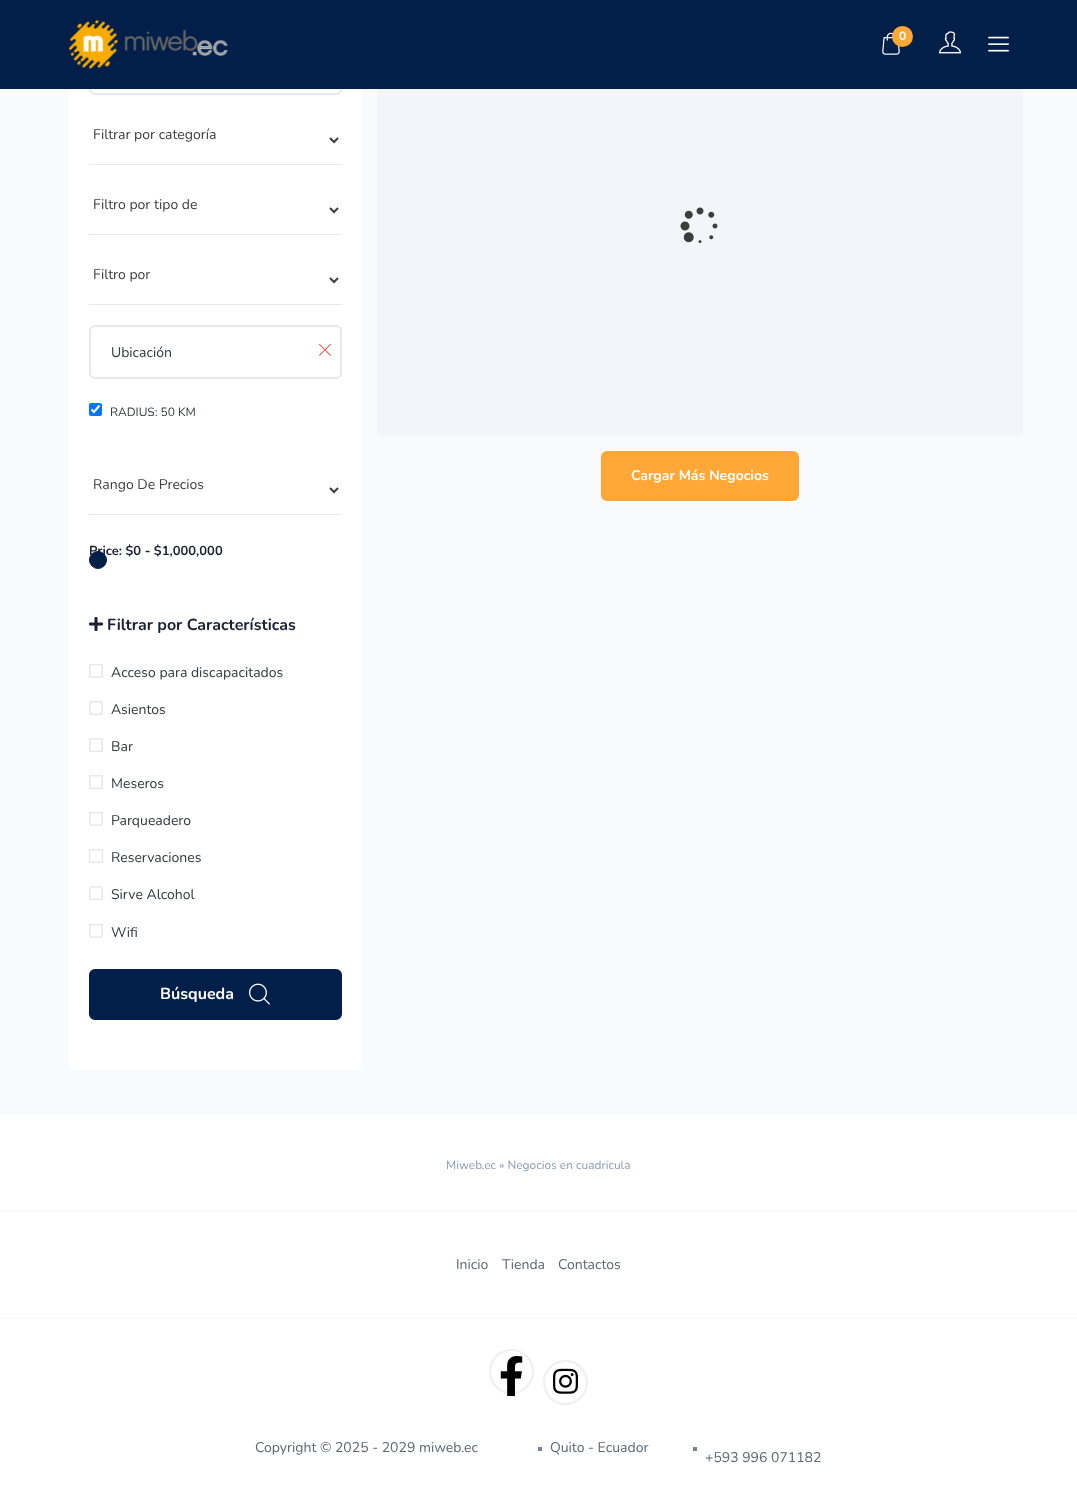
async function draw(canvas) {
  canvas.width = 1077
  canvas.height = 1511
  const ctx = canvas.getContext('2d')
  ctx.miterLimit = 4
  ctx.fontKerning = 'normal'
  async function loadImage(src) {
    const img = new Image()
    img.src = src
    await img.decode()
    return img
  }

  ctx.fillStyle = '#f9fafc'
  ctx.fillRect(0, 0, 1077, 1511)
  ctx.fillStyle = '#fff'
  ctx.beginPath()
  ctx.roundRect(69, 21, 293, 1049, 6)
  ctx.fill()
  ctx.beginPath()
  ctx.roundRect(90, 42, 251, 52, 5)
  ctx.strokeStyle = '#e6e8ed'
  ctx.lineWidth = 2
  ctx.stroke()
  ctx.fillStyle = '#021f4a'
  ctx.fillRect(0, 0, 1077, 89)
  ctx.drawImage(await loadImage('image0.png'), 68, 20, 160, 49)
  ctx.drawImage(await loadImage('image1.png'), 882, 32, 18, 23)
  ctx.fillStyle = '#ffa737'
  ctx.beginPath()
  ctx.arc(902.5, 36.5, 10.5, 0, 2 * Math.PI)
  ctx.fill()
  ctx.font = 'bold 12px Nunito'
  ctx.fillStyle = '#fff'
  ctx.fillText('0', 899, 40)
  ctx.drawImage(await loadImage('image2.png'), 939, 31, 22, 23)
  ctx.drawImage(await loadImage('image3.png'), 988, 36, 21, 16)
  ctx.fillStyle = '#e6e8ed'
  ctx.fillRect(89, 164, 253, 1)
  ctx.beginPath()
  ctx.moveTo(330, 138)
  ctx.lineTo(334, 142)
  ctx.lineTo(338, 138)
  ctx.strokeStyle = '#3e3e3e'
  ctx.stroke()
  ctx.font = '14px Nunito'
  ctx.fillStyle = '#3e3e3e'
  ctx.fillText('Filtrar por categoría', 93, 139)
  ctx.fillStyle = '#e6e8ed'
  ctx.fillRect(89, 234, 253, 1)
  ctx.beginPath()
  ctx.moveTo(330, 208)
  ctx.lineTo(334, 212)
  ctx.lineTo(338, 208)
  ctx.stroke()
  ctx.fillStyle = '#3e3e3e'
  ctx.fillText('Filtro por tipo de', 93, 209)
  ctx.fillStyle = '#e6e8ed'
  ctx.fillRect(89, 304, 253, 1)
  ctx.beginPath()
  ctx.moveTo(330, 278)
  ctx.lineTo(334, 282)
  ctx.lineTo(338, 278)
  ctx.stroke()
  ctx.fillStyle = '#3e3e3e'
  ctx.fillText('Filtro por', 93, 279)
  ctx.beginPath()
  ctx.roundRect(90, 326, 251, 52, 5)
  ctx.strokeStyle = '#e6e8ed'
  ctx.stroke()
  ctx.fillStyle = '#33393d'
  ctx.fillText('Ubicación', 111, 357)
  ctx.drawImage(await loadImage('image4.png'), 319, 343, 12, 13)
  ctx.fillStyle = '#0075ff'
  ctx.beginPath()
  ctx.roundRect(89, 403, 13, 13, 2)
  ctx.fill()
  ctx.beginPath()
  ctx.moveTo(91.5, 409.5)
  ctx.lineTo(94, 412)
  ctx.lineTo(99.5, 405.5)
  ctx.strokeStyle = '#fff'
  ctx.lineWidth = 2.1
  ctx.stroke()
  ctx.font = '12px Nunito'
  ctx.fillStyle = '#33393d'
  ctx.fillText('RADIUS: 50 KM', 110, 416)
  ctx.font = 'bold 13px Nunito'
  ctx.fillStyle = '#1b2032'
  ctx.fillText('Price: $0 - $1,000,000', 89, 555)
  ctx.fillStyle = '#021f4a'
  ctx.beginPath()
  ctx.arc(98, 560, 8.5, 0, 2 * Math.PI)
  ctx.fill()
  ctx.strokeStyle = '#021f4a'
  ctx.lineWidth = 1
  ctx.stroke()
  ctx.fillStyle = '#e6e8ed'
  ctx.fillRect(89, 514, 253, 1)
  ctx.beginPath()
  ctx.moveTo(330, 488)
  ctx.lineTo(334, 492)
  ctx.lineTo(338, 488)
  ctx.strokeStyle = '#3e3e3e'
  ctx.lineWidth = 2
  ctx.stroke()
  ctx.font = '14px Nunito'
  ctx.fillStyle = '#3e3e3e'
  ctx.fillText('Rango De Precios', 93, 489)
  ctx.drawImage(await loadImage('image5.png'), 89, 617, 14, 14)
  ctx.font = 'bold 16px Nunito'
  ctx.fillStyle = '#1b2032'
  ctx.fillText('Filtrar por Características', 107, 630)
  ctx.drawImage(await loadImage('image6.png'), 89, 664, 14, 14)
  ctx.font = '14px Nunito'
  ctx.fillStyle = '#33393d'
  ctx.fillText('Acceso para discapacitados', 111, 677)
  ctx.drawImage(await loadImage('image6.png'), 89, 701, 14, 14)
  ctx.fillText('Asientos', 111, 714)
  ctx.drawImage(await loadImage('image6.png'), 89, 738, 14, 14)
  ctx.fillText('Bar', 111, 751)
  ctx.drawImage(await loadImage('image6.png'), 89, 775, 14, 14)
  ctx.fillText('Meseros', 111, 788)
  ctx.drawImage(await loadImage('image6.png'), 89, 812, 14, 14)
  ctx.fillText('Parqueadero', 111, 825)
  ctx.drawImage(await loadImage('image6.png'), 89, 849, 14, 14)
  ctx.fillText('Reservaciones', 111, 862)
  ctx.drawImage(await loadImage('image6.png'), 89, 886, 14, 14)
  ctx.fillText('Sirve Alcohol', 111, 899)
  ctx.drawImage(await loadImage('image6.png'), 89, 924, 14, 14)
  ctx.fillText('Wifi', 111, 937)
  ctx.fillStyle = '#021f4a'
  ctx.beginPath()
  ctx.roundRect(90, 970, 251, 49, 5)
  ctx.fill()
  ctx.strokeStyle = '#021f4a'
  ctx.stroke()
  ctx.font = 'bold 16px Nunito'
  ctx.fillStyle = '#fff'
  ctx.fillText('Búsqueda', 160, 999)
  ctx.drawImage(await loadImage('image7.png'), 249, 983, 21, 22)
  ctx.fillStyle = '#f4f5fb'
  ctx.fillRect(377, 89, 646, 347)
  ctx.drawImage(await loadImage('image8.png'), 680, 207, 38, 37)
  ctx.fillStyle = '#ffa737'
  ctx.beginPath()
  ctx.roundRect(601, 451, 198, 50, 6)
  ctx.fill()
  ctx.font = 'bold 14px Nunito'
  ctx.fillStyle = '#fff'
  ctx.fillText('Cargar Más Negocios', 631, 480)
  ctx.fillRect(0, 1115, 1077, 96)
  ctx.fillStyle = '#f7f8f9'
  ctx.fillRect(0, 1211, 1077, 1)
  ctx.font = '11.9px Nunito'
  ctx.fillStyle = '#899bb3'
  ctx.fillText('Miweb.ec » Negocios en cuadricula', 446, 1169)
  ctx.fillStyle = '#fff'
  ctx.fillRect(0, 1212, 1077, 106)
  ctx.fillStyle = '#f7f8f9'
  ctx.fillRect(0, 1318, 1077, 1)
  ctx.font = '14px Nunito'
  ctx.fillStyle = '#5c6770'
  ctx.fillText('Inicio', 456, 1269)
  ctx.fillText('Tienda', 502, 1269)
  ctx.fillText('Contactos', 558, 1269)
  ctx.fillStyle = '#fff'
  ctx.fillRect(0, 1319, 1077, 192)
  ctx.beginPath()
  ctx.arc(511.5, 1371.5, 21.5, 0, 2 * Math.PI)
  ctx.strokeStyle = '#efefef'
  ctx.stroke()
  ctx.drawImage(await loadImage('image9.png'), 500, 1356, 23, 40)
  ctx.beginPath()
  ctx.arc(565.5, 1382.5, 21.5, 0, 2 * Math.PI)
  ctx.stroke()
  ctx.drawImage(await loadImage('image10.png'), 553, 1368, 25, 26)
  ctx.fillStyle = '#5c6770'
  ctx.fillText('Copyright © 2025 - 2029 miweb.ec', 255, 1452)
  ctx.fillStyle = '#7b8094'
  ctx.fillRect(538, 1447, 4, 4)
  ctx.fillStyle = '#5c6770'
  ctx.fillText('Quito - Ecuador', 550, 1452)
  ctx.fillStyle = '#7b8094'
  ctx.fillRect(693, 1447, 4, 4)
  ctx.fillStyle = '#5c6770'
  ctx.fillText('+593 996 071182', 705, 1462)
}

draw(document.querySelector('canvas'))
